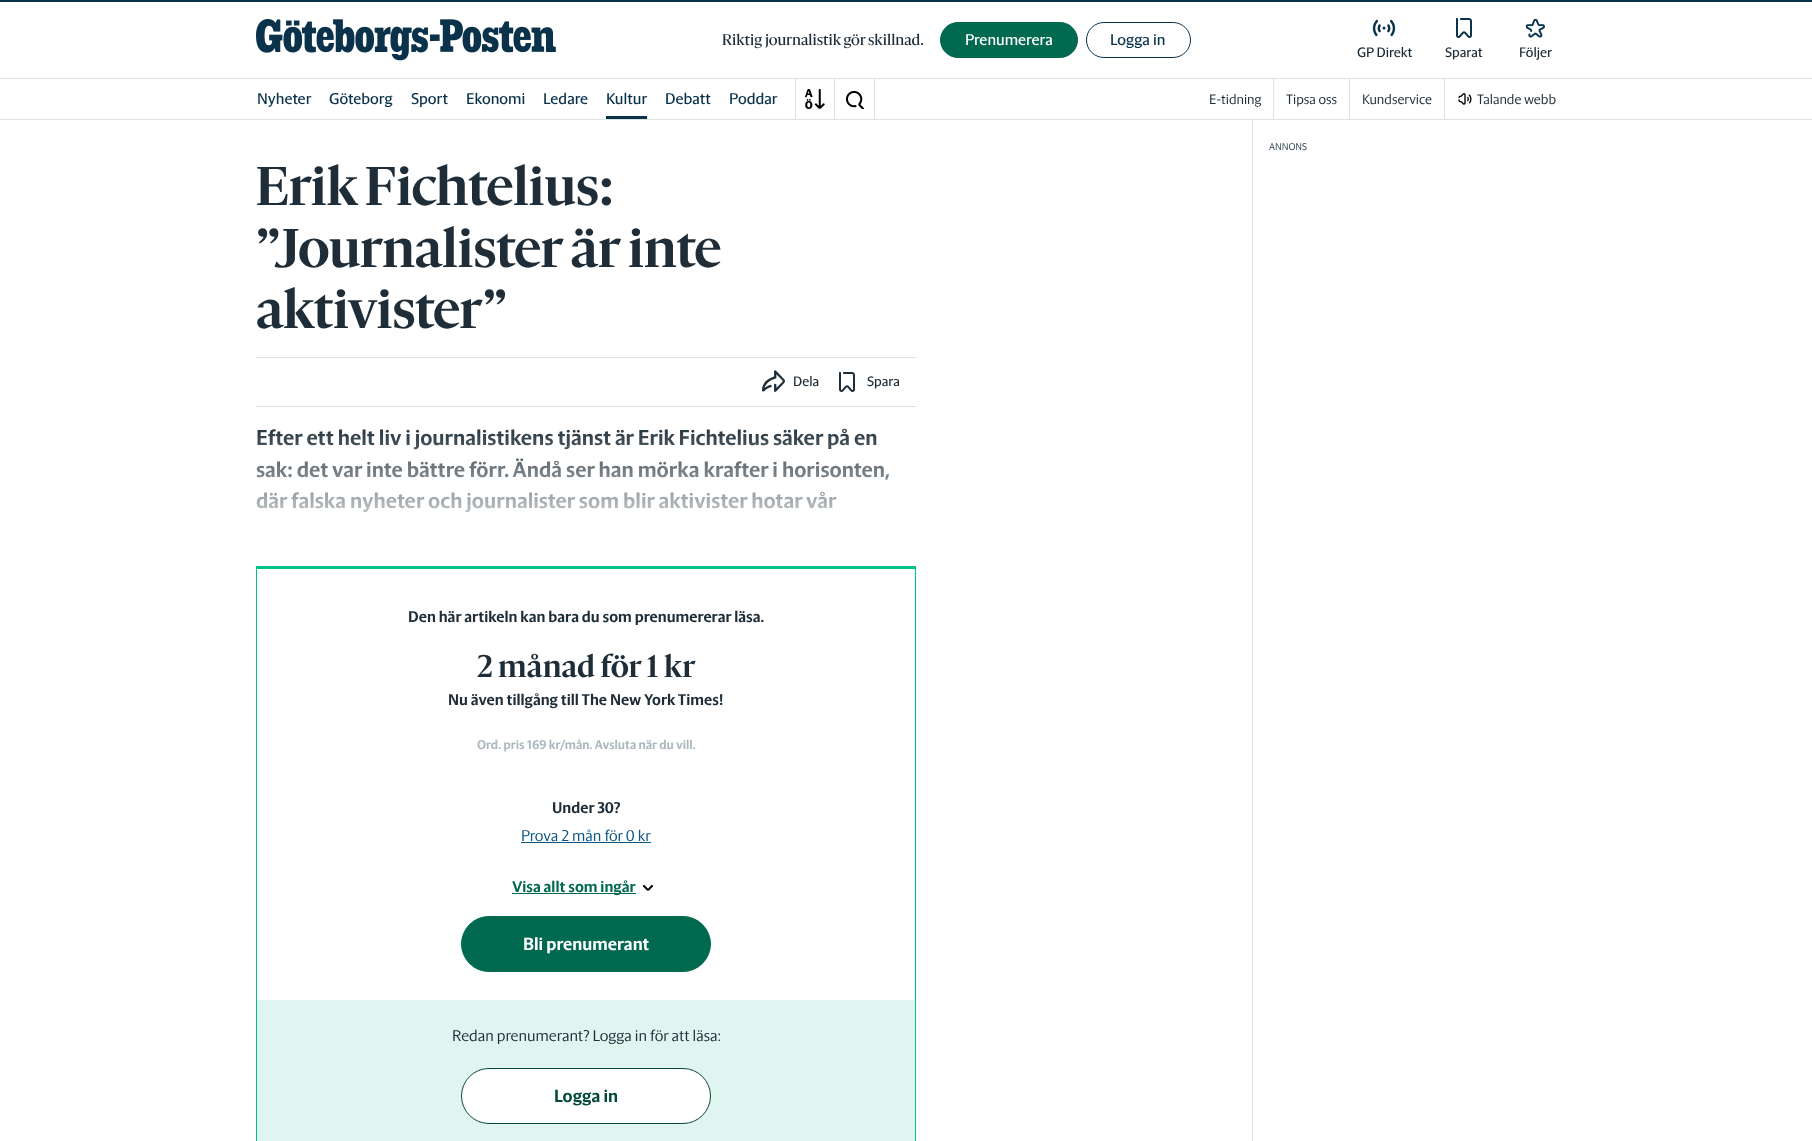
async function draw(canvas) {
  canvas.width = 1812
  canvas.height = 1141
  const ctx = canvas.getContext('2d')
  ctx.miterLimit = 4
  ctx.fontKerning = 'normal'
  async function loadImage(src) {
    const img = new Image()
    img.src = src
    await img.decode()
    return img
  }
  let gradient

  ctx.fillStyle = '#fff'
  ctx.fillRect(0, 0, 1812, 1141)
  ctx.fillStyle = '#0a324b'
  ctx.fillRect(0, 0, 1812, 2)
  ctx.fillStyle = '#dce1e1'
  ctx.fillRect(0, 119, 1812, 1)
  ctx.drawImage(await loadImage('image0.png'), 256, 19, 300, 42)
  ctx.font = '500 16px "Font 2"'
  ctx.fillStyle = '#1e2d37'
  ctx.fillText('Riktig journalistik gör skillnad.', 722, 45)
  ctx.fillStyle = '#006950'
  ctx.beginPath()
  ctx.roundRect(940.5, 22.5, 137, 35, 17.5)
  ctx.fill()
  ctx.strokeStyle = '#006950'
  ctx.stroke()
  ctx.font = '500 16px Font'
  ctx.fillStyle = '#fff'
  ctx.fillText('Prenumerera', 965, 45)
  ctx.beginPath()
  ctx.roundRect(1086.5, 22.5, 104, 35, 17.5)
  ctx.strokeStyle = '#0a324b'
  ctx.stroke()
  ctx.fillStyle = '#0a324b'
  ctx.fillText('Logga in', 1110, 45)
  ctx.drawImage(await loadImage('image1.png'), 1372, 19, 24, 18)
  ctx.font = '500 14px Font'
  ctx.fillStyle = '#1e2d37'
  ctx.fillText('GP Direkt', 1357, 57)
  ctx.drawImage(await loadImage('image2.png'), 1456, 18, 16, 20)
  ctx.fillText('Sparat', 1445, 57)
  ctx.drawImage(await loadImage('image3.png'), 1525, 18, 20, 20)
  ctx.fillText('Följer', 1519, 57)
  ctx.fillStyle = '#dce1e1'
  ctx.fillRect(0, 78, 1812, 1)
  ctx.font = '500 16px Font'
  ctx.fillStyle = '#0a324b'
  ctx.fillText('Nyheter', 257, 104)
  ctx.fillText('Göteborg', 329, 104)
  ctx.fillText('Sport', 411, 104)
  ctx.fillText('Ekonomi', 466, 104)
  ctx.fillText('Ledare', 543, 104)
  ctx.fillText('Kultur', 606, 104)
  ctx.fillRect(606, 116, 41, 3)
  ctx.fillText('Debatt', 665, 104)
  ctx.fillText('Poddar', 729, 104)
  gradient = ctx.createLinearGradient(775, 99, 795, 99)
  gradient.addColorStop(0, '#ffffff00')
  gradient.addColorStop(0.25, '#ffffff80')
  gradient.addColorStop(1, '#fff')
  ctx.fillStyle = gradient
  ctx.fillRect(775, 96, 3, 2)
  ctx.fillStyle = '#dce1e1'
  ctx.fillRect(834, 79, 1, 40)
  ctx.fillRect(795, 79, 1, 40)
  ctx.drawImage(await loadImage('image4.png'), 805, 89, 20, 20)
  ctx.fillRect(874, 79, 1, 40)
  ctx.drawImage(await loadImage('image5.png'), 846, 90, 18, 19)
  ctx.fillRect(1273, 79, 1, 40)
  ctx.font = '300 14px Font'
  ctx.fillStyle = '#1e2d37'
  ctx.fillText('E-tidning', 1209, 104)
  ctx.fillStyle = '#dce1e1'
  ctx.fillRect(1349, 79, 1, 40)
  ctx.fillStyle = '#1e2d37'
  ctx.fillText('Tipsa oss', 1286, 104)
  ctx.fillStyle = '#dce1e1'
  ctx.fillRect(1444, 79, 1, 40)
  ctx.fillStyle = '#1e2d37'
  ctx.fillText('Kundservice', 1362, 104)
  ctx.drawImage(await loadImage('image6.png'), 1458, 93, 14, 12)
  ctx.fillText('Talande webb', 1477, 104)
  ctx.fillStyle = '#dce1e1'
  ctx.fillRect(1252, 120, 1, 1021)
  ctx.font = '300 10px Font'
  ctx.fillStyle = '#324650'
  ctx.fillText('ANNONS', 1269, 150)
  ctx.letterSpacing = '-0.4px'
  ctx.font = 'bold 56px Font'
  ctx.fillStyle = '#1e2d37'
  ctx.fillText('Erik Fichtelius:', 256, 205)
  ctx.fillText('”Journalister är inte', 256, 267)
  ctx.fillText('aktivister”', 256, 328)
  ctx.fillStyle = '#dce1e1'
  ctx.fillRect(256, 357, 660, 1)
  ctx.fillRect(256, 406, 660, 1)
  ctx.drawImage(await loadImage('image7.png'), 762, 370, 23, 22)
  ctx.letterSpacing = '0px'
  ctx.font = '500 14px Font'
  ctx.fillStyle = '#1e2d37'
  ctx.fillText('Dela', 793, 386)
  ctx.drawImage(await loadImage('image8.png'), 839, 372, 16, 20)
  ctx.fillText('Spara', 867, 386)
  ctx.font = 'bold 22px "Font 2"'
  ctx.fillText('Efter ett helt liv i journalistikens tjänst är Erik Fichtelius säker på en', 256, 445)
  ctx.fillText('sak: det var inte bättre förr. Ändå ser han mörka krafter i horisonten,', 256, 477)
  ctx.fillText('där falska nyheter och journalister som blir aktivister hotar vår', 256, 508)
  gradient = ctx.createLinearGradient(586, 423, 586, 550)
  gradient.addColorStop(0, '#ffffff00')
  gradient.addColorStop(1, '#fff')
  ctx.fillStyle = gradient
  ctx.fillRect(256, 429, 634, 84)
  ctx.fillStyle = '#00c389'
  ctx.fillRect(256, 566, 660, 3)
  ctx.fillRect(915, 566, 1, 575)
  ctx.fillRect(256, 566, 1, 575)
  ctx.fillStyle = '#e1f5f0'
  ctx.fillRect(257, 1000, 658, 141)
  ctx.font = 'bold 16px "Font 2"'
  ctx.fillStyle = '#1e2d37'
  ctx.fillText('Den här artikeln kan bara du som prenumererar läsa.', 408, 622)
  ctx.font = 'bold 32px Font'
  ctx.fillText('2 månad för 1 kr', 477, 677)
  ctx.font = 'bold 16px "Font 2"'
  ctx.fillText('Nu även tillgång till The New York Times!', 448, 705)
  ctx.font = 'bold 13px "Font 2"'
  ctx.fillStyle = '#aab9be'
  ctx.fillText('Ord. pris 169 kr/mån. Avsluta när du vill.', 477, 749)
  ctx.font = 'bold 16px "Font 2"'
  ctx.fillStyle = '#1e2d37'
  ctx.fillText('Under 30?', 552, 813)
  ctx.font = '300 16px Font'
  ctx.fillStyle = '#0a5582'
  ctx.fillText('Prova 2 mån för 0 kr', 521, 841)
  ctx.fillRect(521, 842, 130, 1)
  ctx.fillStyle = '#006950'
  ctx.fillRect(512, 893, 124, 1)
  ctx.font = 'bold 16px "Font 2"'
  ctx.fillText('Visa allt som ingår', 512, 892)
  ctx.drawImage(await loadImage('image9.png'), 642, 884, 11, 7)
  ctx.beginPath()
  ctx.roundRect(461.5, 916.5, 249, 55, 27.5)
  ctx.fill()
  ctx.strokeStyle = '#006950'
  ctx.stroke()
  ctx.font = 'bold 18px "Font 2"'
  ctx.fillStyle = '#fff'
  ctx.fillText('Bli prenumerant', 523, 950)
  ctx.font = '300 16px Font'
  ctx.fillStyle = '#1e2d37'
  ctx.fillText('Redan prenumerant? Logga in för att läsa:', 452, 1041)
  ctx.fillStyle = '#fff'
  ctx.beginPath()
  ctx.roundRect(461.5, 1068.5, 249, 55, 27.5)
  ctx.fill()
  ctx.strokeStyle = '#024b3a'
  ctx.stroke()
  ctx.font = 'bold 18px "Font 2"'
  ctx.fillStyle = '#024b3a'
  ctx.fillText('Logga in', 554, 1102)
}

draw(document.querySelector('canvas'))
